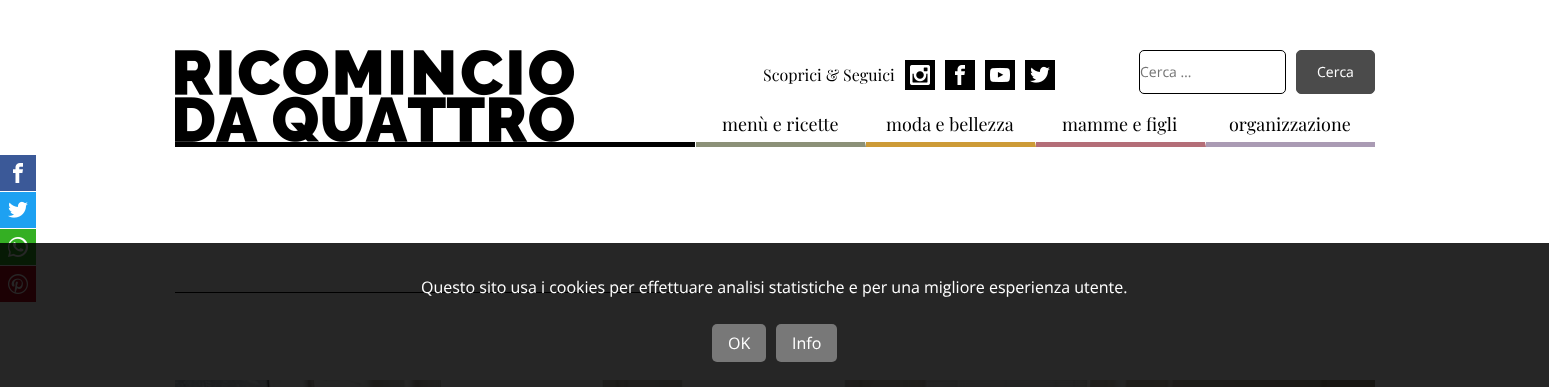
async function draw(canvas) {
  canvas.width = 1549
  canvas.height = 387
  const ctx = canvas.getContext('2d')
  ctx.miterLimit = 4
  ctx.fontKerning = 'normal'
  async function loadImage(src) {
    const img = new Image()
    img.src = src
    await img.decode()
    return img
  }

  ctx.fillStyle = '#fff'
  ctx.fillRect(0, 0, 1549, 387)
  ctx.fillStyle = '#000'
  ctx.fillRect(175, 142, 520, 5)
  ctx.drawImage(await loadImage('image0.png'), 175, 50, 399, 92)
  ctx.font = '16px Playfair Display'
  ctx.fillText('Scoprici & Seguici', 763, 81)
  ctx.fillRect(905, 60, 30, 30)
  ctx.drawImage(await loadImage('image1.png'), 910, 65, 20, 20)
  ctx.fillRect(945, 60, 30, 30)
  ctx.drawImage(await loadImage('image2.png'), 955, 65, 10, 20)
  ctx.fillRect(985, 60, 30, 30)
  ctx.drawImage(await loadImage('image3.png'), 990, 67, 20, 15)
  ctx.fillRect(1025, 60, 30, 30)
  ctx.drawImage(await loadImage('image4.png'), 1030, 66, 20, 17)
  ctx.beginPath()
  ctx.roundRect(1139.5, 50.5, 146, 43, 4.5)
  ctx.strokeStyle = '#000'
  ctx.stroke()
  ctx.font = '14px Open Sans'
  ctx.fillStyle = '#757575'
  ctx.fillText('Cerca …', 1140, 77)
  ctx.fillStyle = '#4b4b4b'
  ctx.beginPath()
  ctx.roundRect(1296.5, 50.5, 78, 43, 4.5)
  ctx.fill()
  ctx.strokeStyle = '#4b4b4b'
  ctx.stroke()
  ctx.fillStyle = '#fff'
  ctx.fillText('Cerca', 1317, 77)
  ctx.fillStyle = '#8c9178'
  ctx.beginPath()
  ctx.moveTo(866, 147)
  ctx.lineTo(696, 147)
  ctx.lineTo(696, 142)
  ctx.lineTo(865, 142)
  ctx.closePath()
  ctx.fill()
  ctx.font = '18px Playfair Display'
  ctx.fillStyle = '#000'
  ctx.fillText('menù e ricette', 722, 131)
  ctx.fillStyle = '#cd9b37'
  ctx.beginPath()
  ctx.moveTo(1036, 147)
  ctx.lineTo(866, 147)
  ctx.lineTo(866, 142)
  ctx.lineTo(1035, 142)
  ctx.closePath()
  ctx.fill()
  ctx.fillStyle = '#000'
  ctx.fillText('moda e bellezza', 886, 131)
  ctx.fillStyle = '#b46e78'
  ctx.beginPath()
  ctx.moveTo(1206, 147)
  ctx.lineTo(1036, 147)
  ctx.lineTo(1036, 142)
  ctx.lineTo(1205, 142)
  ctx.closePath()
  ctx.fill()
  ctx.fillStyle = '#000'
  ctx.fillText('mamme e figli', 1062, 131)
  ctx.fillStyle = '#aa9bb4'
  ctx.fillRect(1206, 142, 169, 5)
  ctx.fillStyle = '#000'
  ctx.fillText('organizzazione', 1229, 131)
  ctx.fillStyle = '#3b5998'
  ctx.fillRect(0, 155, 36, 36)
  ctx.drawImage(await loadImage('image5.png'), 13, 163, 10, 20)
  ctx.fillStyle = '#1da1f2'
  ctx.fillRect(0, 192, 36, 36)
  ctx.drawImage(await loadImage('image6.png'), 8, 201, 20, 17)
  ctx.fillStyle = '#34af23'
  ctx.fillRect(0, 229, 36, 36)
  ctx.drawImage(await loadImage('image7.png'), 8, 237, 20, 20)
  ctx.fillStyle = '#bd081c'
  ctx.fillRect(0, 266, 36, 36)
  ctx.drawImage(await loadImage('image8.png'), 8, 274, 20, 20)
  ctx.fillStyle = '#000'
  ctx.fillRect(175, 292, 526, 1)
  ctx.drawImage(await loadImage('image9.png'), 175, 380, 1200, 7)
  ctx.fillStyle = '#000000d9'
  ctx.fillRect(0, 243, 1549, 144)
  ctx.font = '16px Open Sans'
  ctx.fillStyle = '#fff'
  ctx.fillText('Questo sito usa i cookies per effettuare analisi statistiche e per una migliore esperienza utente.', 421, 293)
  ctx.fillStyle = '#787878'
  ctx.beginPath()
  ctx.roundRect(712, 324, 54, 38, 5)
  ctx.fill()
  ctx.fillStyle = '#fff'
  ctx.fillText('OK', 728, 349)
  ctx.fillStyle = '#787878'
  ctx.beginPath()
  ctx.roundRect(776, 324, 61, 38, 5)
  ctx.fill()
  ctx.fillStyle = '#fff'
  ctx.fillText('Info', 792, 349)
}

draw(document.querySelector('canvas'))
